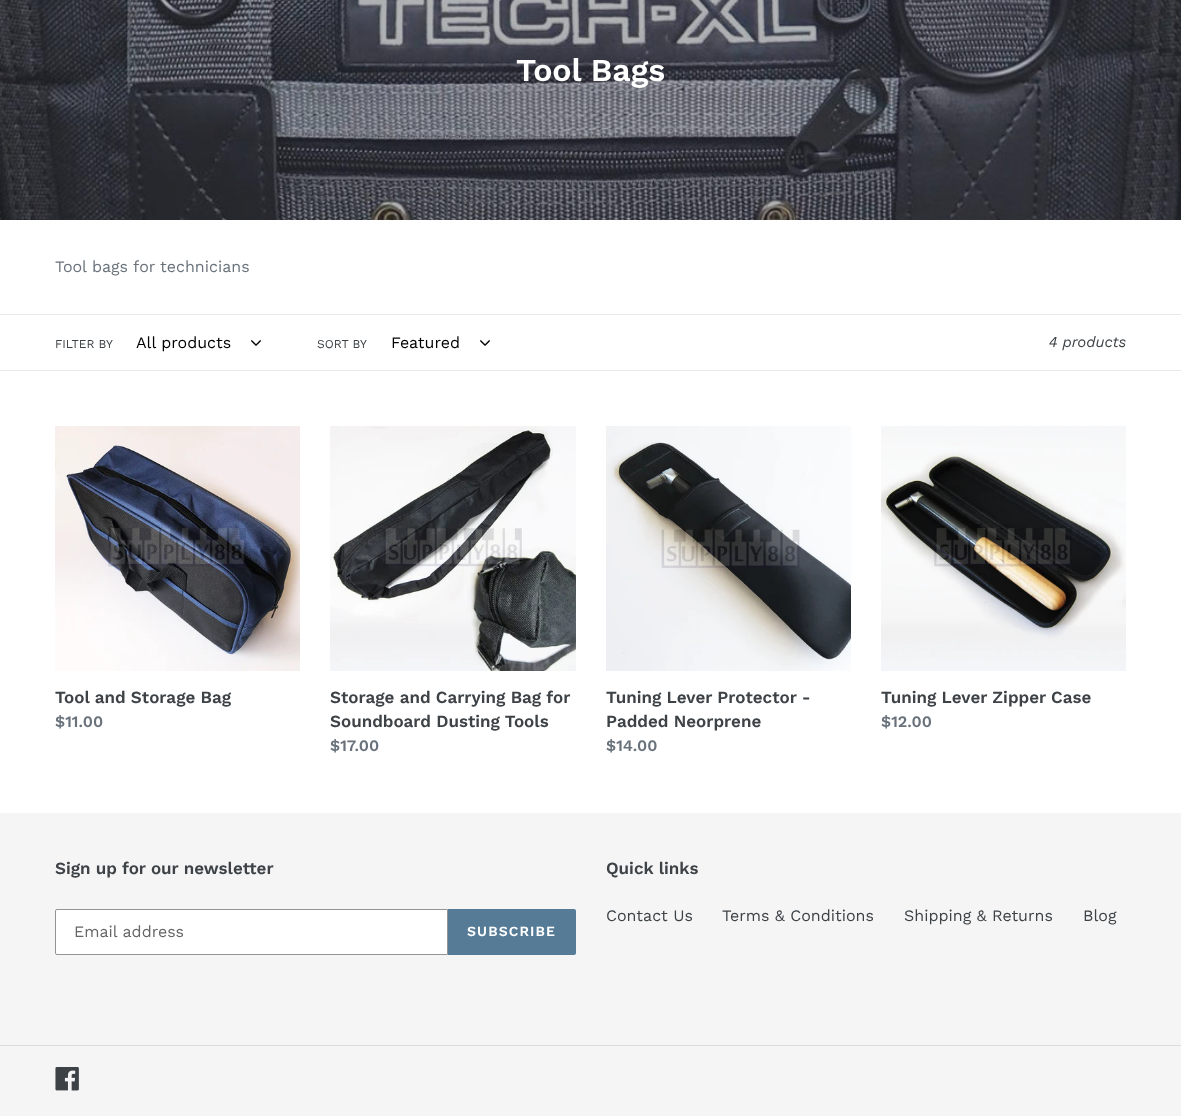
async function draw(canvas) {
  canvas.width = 1181
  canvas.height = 1116
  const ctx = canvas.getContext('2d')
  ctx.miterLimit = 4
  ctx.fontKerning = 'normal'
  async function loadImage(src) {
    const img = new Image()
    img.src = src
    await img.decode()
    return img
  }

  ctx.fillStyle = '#fff'
  ctx.fillRect(0, 0, 1181, 1116)
  ctx.drawImage(await loadImage('image0.png'), 0, 0, 1181, 220)
  ctx.font = '600 32px Work Sans'
  ctx.fillText('Tool Bags', 516, 81)
  ctx.font = '16px Work Sans'
  ctx.fillStyle = '#69727b'
  ctx.fillText('Tool bags for technicians', 55, 272)
  ctx.fillStyle = '#e8e9eb'
  ctx.fillRect(0, 314, 1181, 1)
  ctx.fillRect(0, 370, 1181, 1)
  ctx.font = '12px Work Sans'
  ctx.fillStyle = '#3d4246'
  ctx.fillText('FILTER BY', 55, 348)
  ctx.font = '16px Work Sans'
  ctx.fillStyle = '#000'
  ctx.fillText('All products', 136, 348)
  ctx.drawImage(await loadImage('image1.png'), 251, 340, 10, 6)
  ctx.font = '12px Work Sans'
  ctx.fillStyle = '#3d4246'
  ctx.fillText('SORT BY', 317, 348)
  ctx.font = '16px Work Sans'
  ctx.fillStyle = '#000'
  ctx.fillText('Featured', 391, 348)
  ctx.drawImage(await loadImage('image1.png'), 480, 340, 10, 6)
  ctx.font = 'italic 15px Work Sans'
  ctx.fillStyle = '#3d4246'
  ctx.fillText('4 products', 1049, 347)
  ctx.drawImage(await loadImage('image2.png'), 55, 426, 245, 245)
  ctx.font = '600 17px Work Sans'
  ctx.fillText('Tool and Storage Bag', 55, 703)
  ctx.font = '600 16px Work Sans'
  ctx.fillStyle = '#69727b'
  ctx.fillText('$11.00', 55, 727)
  ctx.drawImage(await loadImage('image3.png'), 330, 426, 246, 245)
  ctx.font = '600 17px Work Sans'
  ctx.fillStyle = '#3d4246'
  ctx.fillText('Storage and Carrying Bag for', 330, 703)
  ctx.fillText('Soundboard Dusting Tools', 330, 727)
  ctx.font = '600 16px Work Sans'
  ctx.fillStyle = '#69727b'
  ctx.fillText('$17.00', 330, 751)
  ctx.drawImage(await loadImage('image4.png'), 606, 426, 245, 245)
  ctx.font = '600 17px Work Sans'
  ctx.fillStyle = '#3d4246'
  ctx.fillText('Tuning Lever Protector -', 606, 703)
  ctx.fillText('Padded Neorprene', 606, 727)
  ctx.font = '600 16px Work Sans'
  ctx.fillStyle = '#69727b'
  ctx.fillText('$14.00', 606, 751)
  ctx.drawImage(await loadImage('image5.png'), 881, 426, 245, 245)
  ctx.font = '600 17px Work Sans'
  ctx.fillStyle = '#3d4246'
  ctx.fillText('Tuning Lever Zipper Case', 881, 703)
  ctx.font = '600 16px Work Sans'
  ctx.fillStyle = '#69727b'
  ctx.fillText('$12.00', 881, 727)
  ctx.fillStyle = '#f5f5f5'
  ctx.fillRect(0, 813, 1181, 303)
  ctx.font = '600 17px Work Sans'
  ctx.fillStyle = '#3d4246'
  ctx.fillText('Sign up for our newsletter', 55, 874)
  ctx.fillStyle = '#fff'
  ctx.beginPath()
  ctx.roundRect(55.5, 909.5, 392, 45, [1.5, 0, 0, 1.5])
  ctx.fill()
  ctx.strokeStyle = '#949494'
  ctx.stroke()
  ctx.font = '16px Work Sans'
  ctx.fillStyle = '#666'
  ctx.fillText('Email address', 74, 937)
  ctx.fillStyle = '#557b97'
  ctx.beginPath()
  ctx.roundRect(448, 909, 128, 46, [0, 2, 2, 0])
  ctx.fill()
  ctx.letterSpacing = '1.1px'
  ctx.font = '600 14px Work Sans'
  ctx.fillStyle = '#fff'
  ctx.fillText('SUBSCRIBE', 467, 936)
  ctx.letterSpacing = '0px'
  ctx.font = '600 17px Work Sans'
  ctx.fillStyle = '#3d4246'
  ctx.fillText('Quick links', 606, 874)
  ctx.font = '16px Work Sans'
  ctx.fillText('Contact Us', 606, 921)
  ctx.fillText('Terms & Conditions', 722, 921)
  ctx.fillText('Shipping & Returns', 904, 921)
  ctx.fillText('Blog', 1083, 921)
  ctx.fillStyle = '#dcdcdc'
  ctx.fillRect(0, 1045, 1181, 1)
  ctx.drawImage(await loadImage('image6.png'), 55, 1067, 24, 24)
}

draw(document.querySelector('canvas'))
